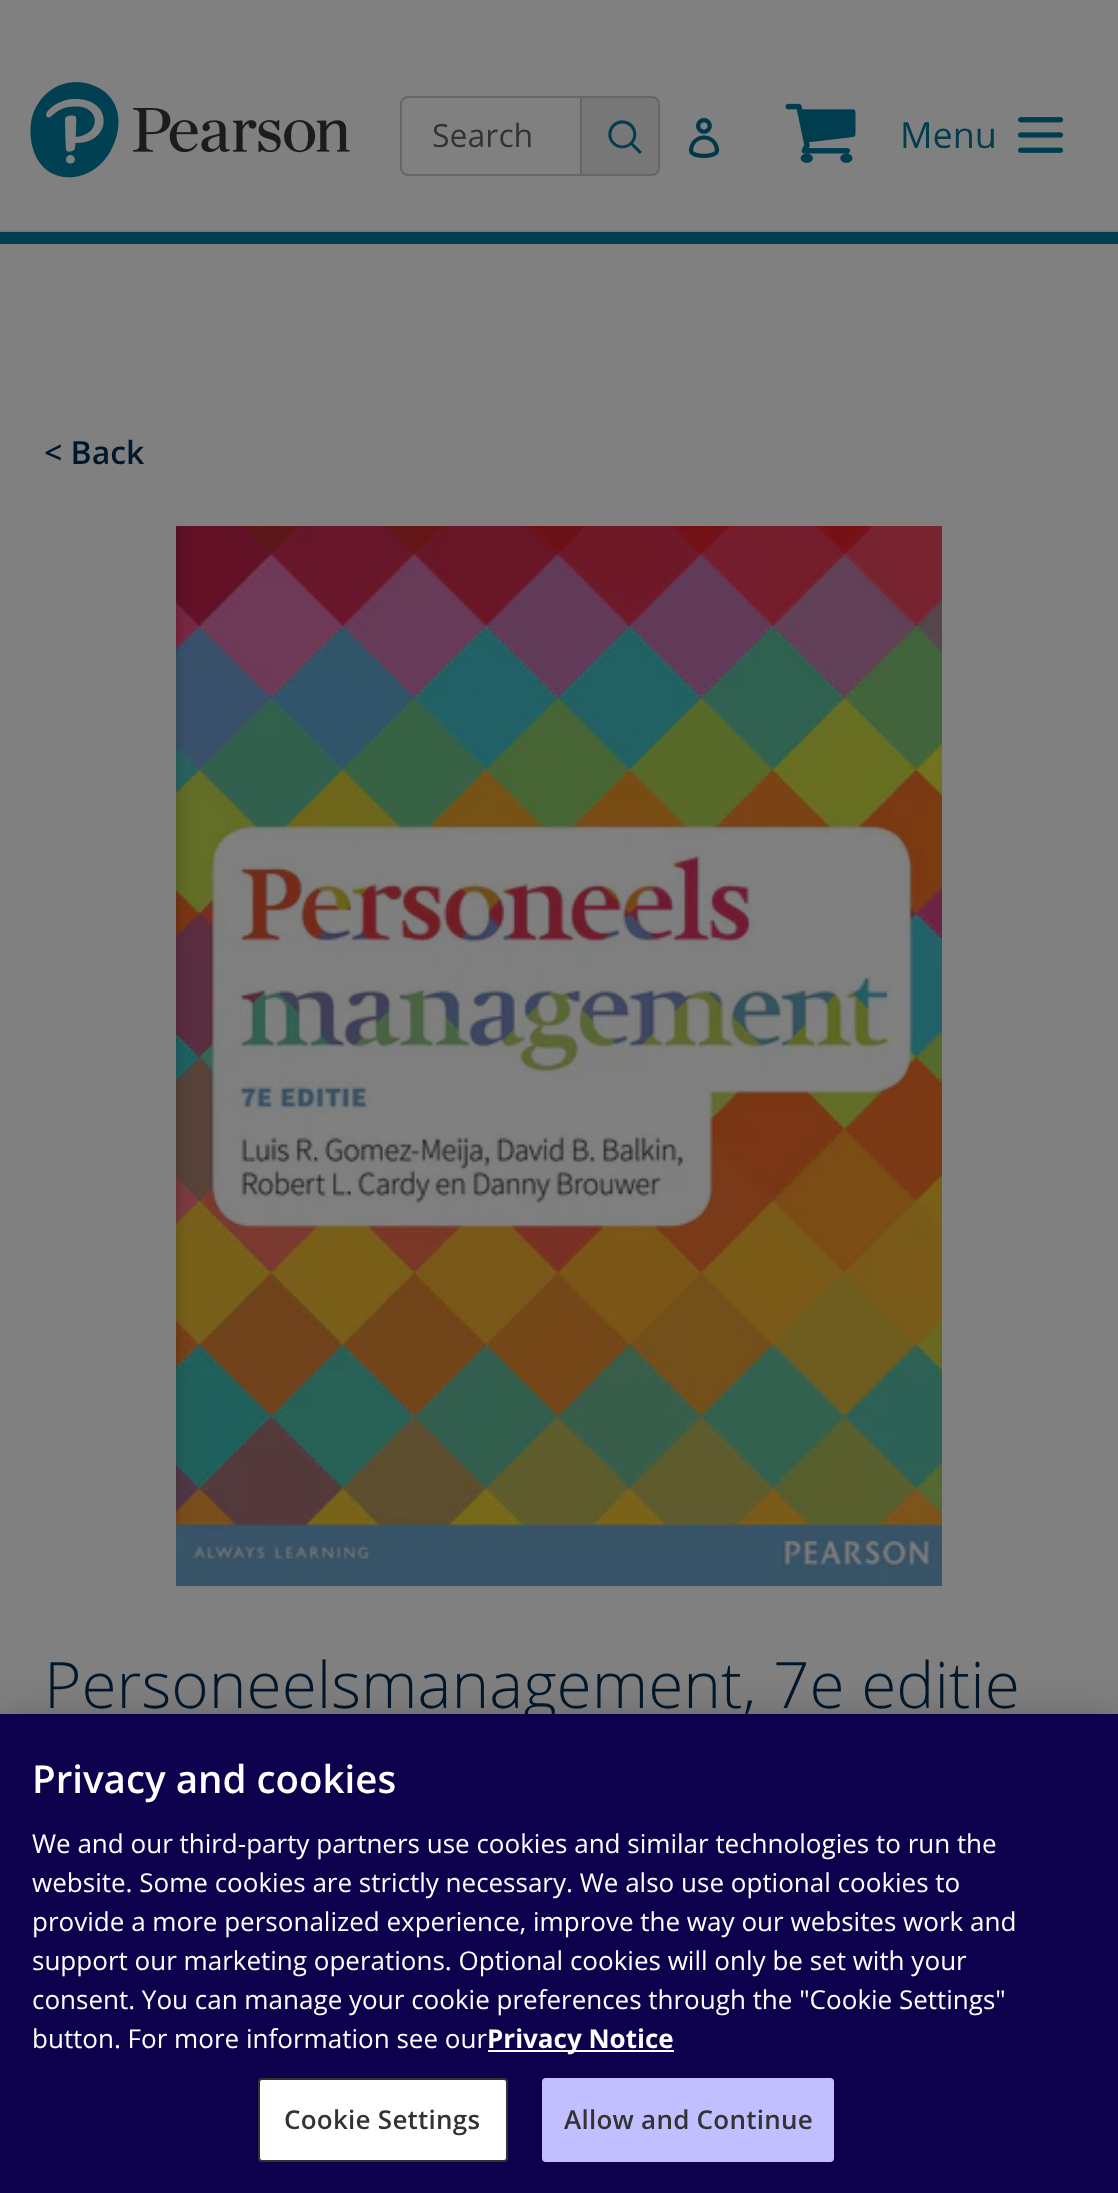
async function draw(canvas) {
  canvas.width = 1118
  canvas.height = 2193
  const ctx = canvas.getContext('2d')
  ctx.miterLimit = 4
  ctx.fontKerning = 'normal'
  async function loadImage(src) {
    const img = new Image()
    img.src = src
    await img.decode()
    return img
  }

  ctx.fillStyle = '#808080'
  ctx.fillRect(0, 0, 1118, 2193)
  ctx.fillStyle = '#003d4e'
  ctx.fillRect(0, 232, 1118, 12)
  ctx.fillStyle = '#767676'
  ctx.fillRect(0, 230, 1118, 2)
  ctx.drawImage(await loadImage('image0.png'), 30, 82, 320, 96)
  ctx.fillStyle = '#666'
  ctx.beginPath()
  ctx.moveTo(408, 96)
  ctx.lineTo(580, 96)
  ctx.lineTo(580, 176)
  ctx.lineTo(408, 176)
  ctx.bezierCurveTo(404, 176, 400, 172, 400, 168)
  ctx.lineTo(400, 104)
  ctx.bezierCurveTo(400, 100, 404, 96, 408, 96)
  ctx.closePath()
  ctx.moveTo(408, 98)
  ctx.lineTo(580, 98)
  ctx.lineTo(580, 174)
  ctx.lineTo(408, 174)
  ctx.bezierCurveTo(405, 174, 402, 171, 402, 168)
  ctx.lineTo(402, 104)
  ctx.bezierCurveTo(402, 101, 405, 98, 408, 98)
  ctx.closePath()
  ctx.fill('evenodd')
  ctx.font = '32px Open Sans'
  ctx.fillStyle = '#333'
  ctx.fillText('Search', 432, 147)
  ctx.fillStyle = '#777'
  ctx.beginPath()
  ctx.roundRect(581, 97, 78, 78, [0, 7, 7, 0])
  ctx.fill()
  ctx.strokeStyle = '#666'
  ctx.lineWidth = 2
  ctx.stroke()
  ctx.drawImage(await loadImage('image1.png'), 608, 120, 34, 34)
  ctx.drawImage(await loadImage('image2.png'), 689, 118, 31, 40)
  ctx.drawImage(await loadImage('image3.png'), 785, 103, 71, 60)
  ctx.font = '36px Open Sans'
  ctx.fillStyle = '#003d4e'
  ctx.fillText('Menu', 900, 148)
  ctx.drawImage(await loadImage('image4.png'), 1018, 117, 46, 36)
  ctx.font = '600 32px Open Sans'
  ctx.fillStyle = '#00182c'
  ctx.fillText('< Back', 44, 464)
  ctx.drawImage(await loadImage('image5.png'), 176, 526, 766, 1060)
  ctx.font = '300 64px Open Sans'
  ctx.fillText('Personeelsmanagement, 7e editie', 44, 1708)
  ctx.fillStyle = '#00000033'
  ctx.filter = 'blur(18px)'
  ctx.beginPath()
  ctx.rect(0, 1714, 1118, 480)
  ctx.fill()
  ctx.filter = 'none'
  ctx.fillStyle = '#0d004d'
  ctx.fillRect(0, 1714, 1118, 479)
  ctx.font = '600 38.5px Open Sans'
  ctx.fillStyle = '#fefefe'
  ctx.fillText('Privacy and cookies', 32, 1793)
  ctx.font = '26px Open Sans'
  ctx.fillText('We and our third-party partners use cookies and similar technologies to run the', 32, 1853)
  ctx.fillText('website. Some cookies are strictly necessary. We also use optional cookies to', 32, 1892)
  ctx.fillText('provide a more personalized experience, improve the way our websites work and', 32, 1931)
  ctx.fillText('support our marketing operations. Optional cookies will only be set with your', 32, 1970)
  ctx.fillText('consent. You can manage your cookie preferences through the "Cookie Settings"', 32, 2009)
  ctx.fillText('button. For more information see our', 32, 2048)
  ctx.fillRect(488, 2050, 186, 2)
  ctx.font = 'bold 26px Open Sans'
  ctx.fillText('Privacy Notice', 487, 2048)
  ctx.fillStyle = '#fff'
  ctx.beginPath()
  ctx.roundRect(259, 2079, 248, 82, 3)
  ctx.fill()
  ctx.strokeStyle = '#333'
  ctx.stroke()
  ctx.letterSpacing = '0.25px'
  ctx.font = '600 26px Open Sans'
  ctx.fillStyle = '#333'
  ctx.fillText('Cookie Settings', 284, 2129)
  ctx.fillStyle = '#c1bfff'
  ctx.beginPath()
  ctx.roundRect(543, 2079, 290, 82, 3)
  ctx.fill()
  ctx.strokeStyle = '#c1bfff'
  ctx.stroke()
  ctx.fillStyle = '#333'
  ctx.fillText('Allow and Continue', 564, 2129)
}

draw(document.querySelector('canvas'))
